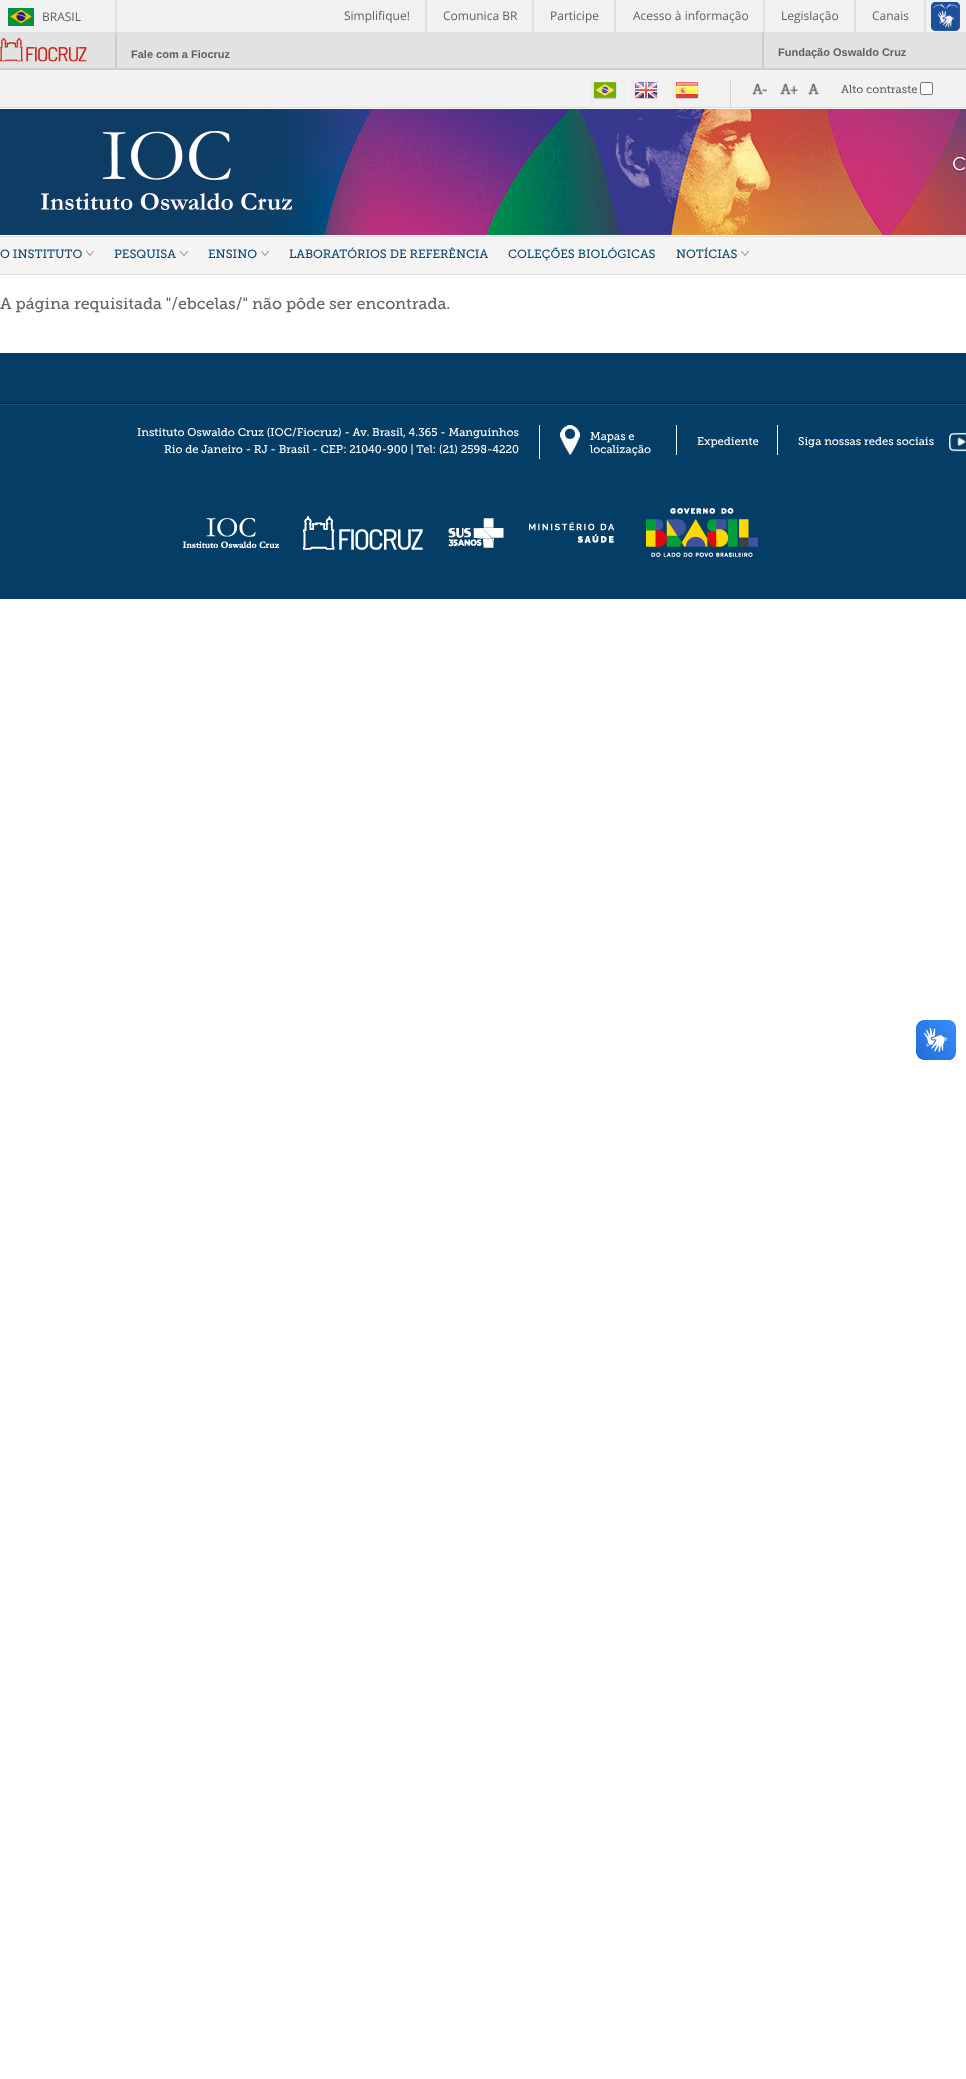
async function draw(canvas) {
  canvas.width = 966
  canvas.height = 2079
  const ctx = canvas.getContext('2d')
  ctx.miterLimit = 4
  ctx.fontKerning = 'normal'
  async function loadImage(src) {
    const img = new Image()
    img.src = src
    await img.decode()
    return img
  }

  ctx.fillStyle = '#fff'
  ctx.fillRect(0, 0, 966, 2079)
  ctx.fillStyle = '#f1f1f1'
  ctx.fillRect(0, 0, 966, 32)
  ctx.fillStyle = '#dfdfdf'
  ctx.fillRect(0, 32, 966, 1)
  ctx.fillRect(115, 0, 2, 32)
  ctx.drawImage(await loadImage('image0.png'), 8, 8, 26, 18)
  ctx.font = '12px Open Sans'
  ctx.fillStyle = '#606060'
  ctx.fillText('BRASIL', 42, 21)
  ctx.fillStyle = '#dfdfdf'
  ctx.fillRect(425, 0, 2, 32)
  ctx.fillStyle = '#606060'
  ctx.fillText('Simplifique!', 344, 20)
  ctx.fillStyle = '#dfdfdf'
  ctx.fillRect(532, 0, 2, 32)
  ctx.fillStyle = '#606060'
  ctx.fillText('Comunica BR', 443, 20)
  ctx.fillStyle = '#dfdfdf'
  ctx.fillRect(614, 0, 2, 32)
  ctx.fillStyle = '#606060'
  ctx.fillText('Participe', 550, 20)
  ctx.fillStyle = '#dfdfdf'
  ctx.fillRect(763, 0, 2, 32)
  ctx.fillStyle = '#606060'
  ctx.fillText('Acesso à informação', 633, 20)
  ctx.fillStyle = '#dfdfdf'
  ctx.fillRect(854, 0, 2, 32)
  ctx.fillStyle = '#606060'
  ctx.fillText('Legislação', 781, 20)
  ctx.fillStyle = '#dfdfdf'
  ctx.fillRect(924, 0, 2, 32)
  ctx.fillStyle = '#606060'
  ctx.fillText('Canais', 872, 20)
  ctx.drawImage(await loadImage('image1.png'), 931, 2, 29, 29)
  ctx.fillStyle = '#e2e2e2'
  ctx.fillRect(0, 33, 966, 35)
  ctx.fillStyle = '#ccc'
  ctx.fillRect(0, 68, 966, 2)
  ctx.drawImage(await loadImage('image2.png'), 0, 37, 87, 25)
  ctx.fillRect(115, 33, 2, 35)
  ctx.font = 'bold 11px Liberation Sans'
  ctx.fillStyle = '#606060'
  ctx.fillText('Fale com a Fiocruz', 131, 58)
  ctx.fillStyle = '#ccc'
  ctx.fillRect(762, 33, 2, 35)
  ctx.fillStyle = '#606060'
  ctx.fillText('Fundação Oswaldo Cruz', 778, 56)
  ctx.fillStyle = '#f2f2f2'
  ctx.fillRect(0, 70, 966, 37)
  ctx.fillStyle = '#dadcdb'
  ctx.fillRect(0, 107, 966, 1)
  ctx.fillStyle = '#d3d3d3'
  ctx.fillRect(730, 79, 1, 28)
  ctx.fillStyle = '#eee'
  ctx.fillRect(590, 78, 3, 30)
  ctx.drawImage(await loadImage('image3.png'), 593, 82, 24, 17)
  ctx.fillRect(631, 78, 3, 30)
  ctx.drawImage(await loadImage('image4.png'), 634, 82, 24, 17)
  ctx.fillRect(672, 78, 3, 30)
  ctx.drawImage(await loadImage('image5.png'), 675, 82, 24, 17)
  ctx.drawImage(await loadImage('image6.png'), 752, 83, 15, 12)
  ctx.drawImage(await loadImage('image7.png'), 780, 83, 18, 12)
  ctx.drawImage(await loadImage('image8.png'), 808, 83, 11, 12)
  ctx.font = '11.2px Museo Slab'
  ctx.fillStyle = '#666'
  ctx.fillText('Alto contraste', 841, 93)
  ctx.fillStyle = '#fff'
  ctx.beginPath()
  ctx.roundRect(920.5, 82.5, 12, 12, 1.5)
  ctx.fill()
  ctx.strokeStyle = '#767676'
  ctx.stroke()
  ctx.drawImage(await loadImage('image9.png'), 0, 109, 966, 126)
  ctx.fillStyle = '#f4f4f4'
  ctx.fillRect(0, 237, 966, 37)
  ctx.fillStyle = '#dcdcdc'
  ctx.fillRect(0, 236, 966, 1)
  ctx.fillRect(0, 274, 966, 1)
  ctx.drawImage(await loadImage('image10.png'), 86, 251, 8, 5)
  ctx.font = '12px Museo Slab'
  ctx.fillStyle = '#114b74'
  ctx.fillText('O INSTITUTO', 0, 258)
  ctx.drawImage(await loadImage('image10.png'), 180, 251, 8, 5)
  ctx.fillText('PESQUISA', 114, 258)
  ctx.drawImage(await loadImage('image10.png'), 261, 251, 8, 5)
  ctx.fillText('ENSINO', 208, 258)
  ctx.fillText('LABORATÓRIOS DE REFERÊNCIA', 289, 258)
  ctx.fillText('COLEÇÕES BIOLÓGICAS', 508, 258)
  ctx.drawImage(await loadImage('image10.png'), 741, 251, 8, 5)
  ctx.fillText('NOTÍCIAS', 676, 258)
  ctx.font = '16px Museo Slab'
  ctx.fillStyle = '#666'
  ctx.fillText('A página requisitada "/ebcelas/" não pôde ser encontrada.', 0, 309)
  ctx.fillStyle = '#043e66'
  ctx.fillRect(0, 353, 966, 246)
  ctx.fillStyle = '#002645'
  ctx.fillRect(0, 403, 966, 1)
  ctx.fillStyle = '#204975'
  ctx.fillRect(0, 404, 966, 1)
  ctx.fillStyle = '#fff'
  ctx.fillRect(539, 425, 1, 34)
  ctx.font = '11.2px Museo Slab'
  ctx.fillText('Instituto Oswaldo Cruz (IOC/Fiocruz) - Av. Brasil, 4.365 - Manguinhos', 137, 436)
  ctx.fillText('Rio de Janeiro - RJ - Brasil - CEP: 21040-900 | Tel: (21) 2598-4220', 164, 453)
  ctx.fillRect(676, 425, 1, 30)
  ctx.drawImage(await loadImage('image11.png'), 560, 425, 20, 30)
  ctx.fillText('Mapas e', 590, 440)
  ctx.fillText('localização', 590, 453)
  ctx.fillRect(777, 425, 1, 30)
  ctx.fillText('Expediente', 697, 445)
  ctx.fillText('Siga nossas redes sociais', 798, 445)
  ctx.drawImage(await loadImage('image12.png'), 949, 432, 17, 20)
  ctx.drawImage(await loadImage('image13.png'), 183, 518, 96, 30)
  ctx.drawImage(await loadImage('image14.png'), 303, 516, 120, 34)
  ctx.drawImage(await loadImage('image15.png'), 448, 518, 56, 30)
  ctx.drawImage(await loadImage('image16.png'), 529, 522, 85, 21)
  ctx.drawImage(await loadImage('image17.png'), 646, 508, 112, 49)
  ctx.drawImage(await loadImage('image18.png'), 916, 1020, 40, 40)
  ctx.drawImage(await loadImage('image19.png'), 916, 1020, 40, 40)
}

draw(document.querySelector('canvas'))
